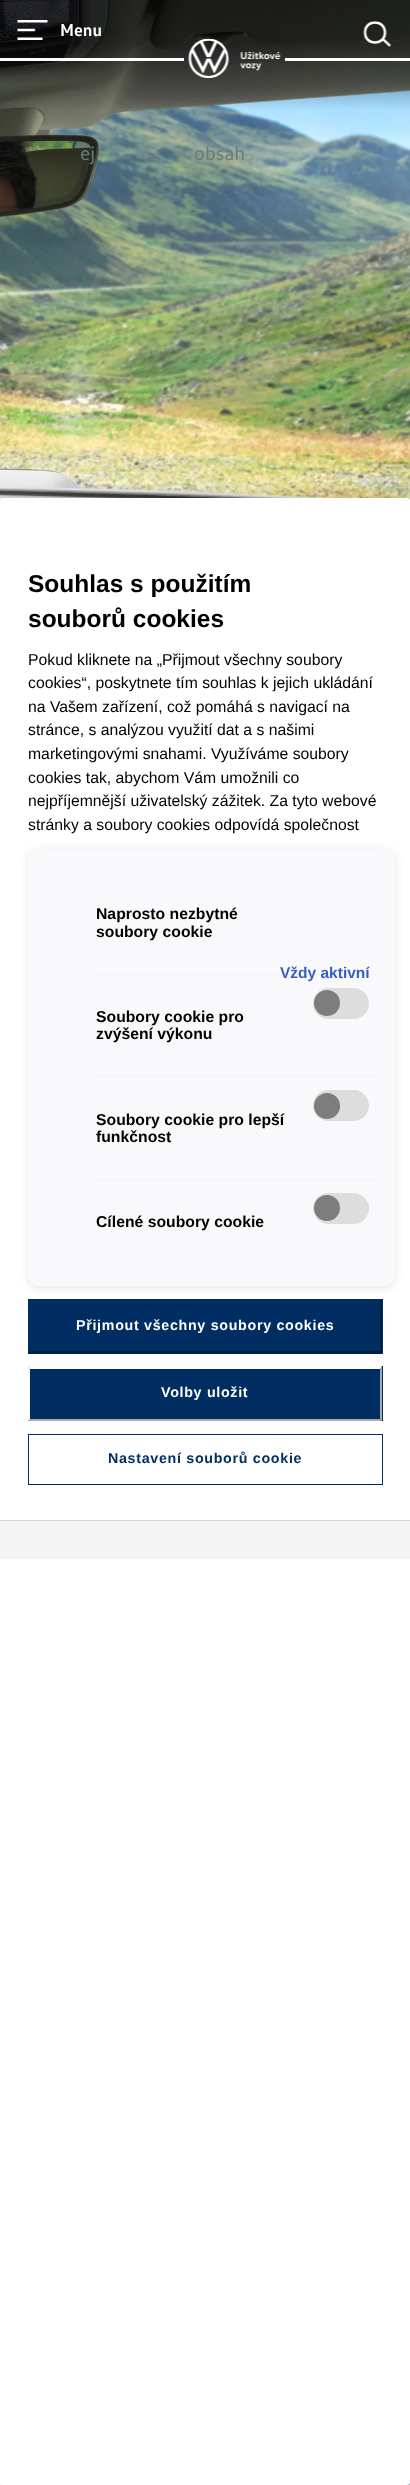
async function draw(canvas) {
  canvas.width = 410
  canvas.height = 2485
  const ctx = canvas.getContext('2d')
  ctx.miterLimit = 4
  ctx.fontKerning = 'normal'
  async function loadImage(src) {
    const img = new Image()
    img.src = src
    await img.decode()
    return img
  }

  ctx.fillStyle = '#fff'
  ctx.fillRect(0, 0, 410, 2485)
  ctx.drawImage(await loadImage('image0.png'), 0, 0, 410, 501)
  ctx.drawImage(await loadImage('image1.png'), 407, 2482, 3, 3)
  ctx.drawImage(await loadImage('image2.png'), 17, 20, 31, 20)
  ctx.font = 'bold 17.5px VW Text'
  ctx.fillText('Menu', 60, 36)
  ctx.fillRect(0, 58, 184, 3)
  ctx.drawImage(await loadImage('image3.png'), 188, 38, 93, 41)
  ctx.fillRect(285, 58, 125, 3)
  ctx.drawImage(await loadImage('image4.png'), 363, 21, 29, 26)
  ctx.font = '20px VW Text'
  ctx.fillStyle = '#697e76'
  ctx.fillText('ej', 80, 160)
  ctx.fillText('obsah', 194, 160)
  ctx.fillStyle = '#00000033'
  ctx.filter = 'blur(11px)'
  ctx.beginPath()
  ctx.roundRect(0, 498, 410, 1987, 3)
  ctx.fill()
  ctx.filter = 'none'
  ctx.fillStyle = '#fff'
  ctx.beginPath()
  ctx.roundRect(0, 498, 410, 1987, 3)
  ctx.fill()
  ctx.font = 'bold 24.5px Liberation Sans'
  ctx.fillStyle = '#000'
  ctx.fillText('Souhlas s použitím', 28, 592)
  ctx.fillText('souborů cookies', 28, 627)
  ctx.font = '15.75px Liberation Sans'
  ctx.fillText('Pokud kliknete na „Přijmout všechny soubory', 28, 665)
  ctx.fillText('cookies“, poskytnete tím souhlas k jejich ukládání', 28, 688)
  ctx.fillText('na Vašem zařízení, což pomáhá s navigací na', 28, 712)
  ctx.fillText('stránce, s analýzou využití dat a s našimi', 28, 735)
  ctx.fillText('marketingovými snahami. Využíváme soubory', 28, 759)
  ctx.fillText('cookies tak, abychom Vám umožnili co', 28, 783)
  ctx.fillText('nejpříjemnější uživatelský zážitek. Za tyto webové', 28, 806)
  ctx.fillText('stránky a soubory cookies odpovídá společnost', 28, 830)
  ctx.fillStyle = '#0000001a'
  ctx.filter = 'blur(4px)'
  ctx.beginPath()
  ctx.roundRect(28, 850, 367, 438, 10)
  ctx.fill()
  ctx.filter = 'none'
  ctx.fillStyle = '#f9f9fc'
  ctx.beginPath()
  ctx.roundRect(28, 849, 367, 437, 10)
  ctx.fill()
  ctx.fillStyle = '#f4f4f4'
  ctx.fillRect(96, 974, 280, 1)
  ctx.font = 'bold 15.75px Liberation Sans'
  ctx.fillStyle = '#000'
  ctx.fillText('Naprosto nezbytné', 96, 919)
  ctx.fillText('soubory cookie', 96, 937)
  ctx.font = 'bold 15.5px Liberation Sans'
  ctx.fillStyle = '#3860be'
  ctx.fillText('Vždy aktivní', 280, 978)
  ctx.fillStyle = '#f4f4f4'
  ctx.fillRect(96, 1076, 280, 1)
  ctx.fillStyle = '#ddd'
  ctx.beginPath()
  ctx.moveTo(328, 988)
  ctx.lineTo(354, 988)
  ctx.bezierCurveTo(362, 988, 369, 995, 369, 1004)
  ctx.bezierCurveTo(369, 1012, 362, 1019, 354, 1019)
  ctx.lineTo(328, 1019)
  ctx.bezierCurveTo(320, 1019, 313, 1012, 313, 1004)
  ctx.bezierCurveTo(313, 995, 320, 988, 328, 988)
  ctx.closePath()
  ctx.fill()
  ctx.fillStyle = '#7d7d7d'
  ctx.beginPath()
  ctx.arc(327, 1003, 13, 0, 2 * Math.PI)
  ctx.fill()
  ctx.font = 'bold 15.75px Liberation Sans'
  ctx.fillStyle = '#000'
  ctx.fillText('Soubory cookie pro', 96, 1022)
  ctx.fillText('zvýšení výkonu', 96, 1039)
  ctx.fillStyle = '#f4f4f4'
  ctx.fillRect(96, 1179, 280, 1)
  ctx.fillStyle = '#ddd'
  ctx.beginPath()
  ctx.moveTo(328, 1090)
  ctx.lineTo(354, 1090)
  ctx.bezierCurveTo(362, 1090, 369, 1097, 369, 1106)
  ctx.bezierCurveTo(369, 1114, 362, 1121, 354, 1121)
  ctx.lineTo(328, 1121)
  ctx.bezierCurveTo(320, 1121, 313, 1114, 313, 1106)
  ctx.bezierCurveTo(313, 1097, 320, 1090, 328, 1090)
  ctx.closePath()
  ctx.fill()
  ctx.fillStyle = '#7d7d7d'
  ctx.beginPath()
  ctx.arc(327, 1106, 13, 0, 2 * Math.PI)
  ctx.fill()
  ctx.fillStyle = '#000'
  ctx.fillText('Soubory cookie pro lepší', 96, 1125)
  ctx.fillText('funkčnost', 96, 1142)
  ctx.fillText('Cílené soubory cookie', 96, 1227)
  ctx.fillStyle = '#ddd'
  ctx.beginPath()
  ctx.moveTo(328, 1193)
  ctx.lineTo(354, 1193)
  ctx.bezierCurveTo(362, 1193, 369, 1200, 369, 1208)
  ctx.bezierCurveTo(369, 1217, 362, 1224, 354, 1224)
  ctx.lineTo(328, 1224)
  ctx.bezierCurveTo(320, 1224, 313, 1217, 313, 1208)
  ctx.bezierCurveTo(313, 1200, 320, 1193, 328, 1193)
  ctx.closePath()
  ctx.fill()
  ctx.fillStyle = '#7d7d7d'
  ctx.beginPath()
  ctx.arc(327, 1208, 13, 0, 2 * Math.PI)
  ctx.fill()
  ctx.fillStyle = '#002e62'
  ctx.fillRect(28, 1299, 355, 55)
  ctx.fillStyle = '#001f41'
  ctx.beginPath()
  ctx.moveTo(382, 1299)
  ctx.lineTo(382, 1354)
  ctx.lineTo(380, 1351)
  ctx.lineTo(380, 1301)
  ctx.closePath()
  ctx.fill()
  ctx.beginPath()
  ctx.moveTo(382, 1354)
  ctx.lineTo(28, 1354)
  ctx.lineTo(30, 1351)
  ctx.lineTo(380, 1351)
  ctx.closePath()
  ctx.fill()
  ctx.fillStyle = '#002e62'
  ctx.beginPath()
  ctx.moveTo(28, 1354)
  ctx.lineTo(28, 1299)
  ctx.lineTo(30, 1301)
  ctx.lineTo(30, 1351)
  ctx.closePath()
  ctx.fill()
  ctx.letterSpacing = '0.7px'
  ctx.font = 'bold 14.25px Liberation Sans'
  ctx.fillStyle = '#fff'
  ctx.fillText('Přijmout všechny soubory cookies', 76, 1330)
  ctx.fillStyle = '#002e62'
  ctx.fillRect(28, 1366, 355, 55)
  ctx.fillStyle = '#fff'
  ctx.beginPath()
  ctx.moveTo(28, 1366)
  ctx.lineTo(382, 1366)
  ctx.lineTo(380, 1369)
  ctx.lineTo(30, 1369)
  ctx.closePath()
  ctx.fill()
  ctx.fillStyle = '#aaa'
  ctx.beginPath()
  ctx.moveTo(382, 1366)
  ctx.lineTo(382, 1421)
  ctx.lineTo(380, 1419)
  ctx.lineTo(380, 1369)
  ctx.closePath()
  ctx.fill()
  ctx.beginPath()
  ctx.moveTo(382, 1421)
  ctx.lineTo(28, 1421)
  ctx.lineTo(30, 1419)
  ctx.lineTo(380, 1419)
  ctx.closePath()
  ctx.fill()
  ctx.fillStyle = '#fff'
  ctx.beginPath()
  ctx.moveTo(28, 1421)
  ctx.lineTo(28, 1366)
  ctx.lineTo(30, 1369)
  ctx.lineTo(30, 1419)
  ctx.closePath()
  ctx.fill()
  ctx.fillText('Volby uložit', 161, 1397)
  ctx.strokeStyle = '#002e62'
  ctx.strokeRect(28.5, 1434.5, 354, 50)
  ctx.fillStyle = '#002e62'
  ctx.fillText('Nastavení souborů cookie', 108, 1463)
  ctx.fillStyle = '#f4f4f4'
  ctx.fillRect(0, 1521, 410, 38)
  ctx.fillStyle = '#d8d8d8'
  ctx.fillRect(0, 1520, 410, 1)
}

draw(document.querySelector('canvas'))
